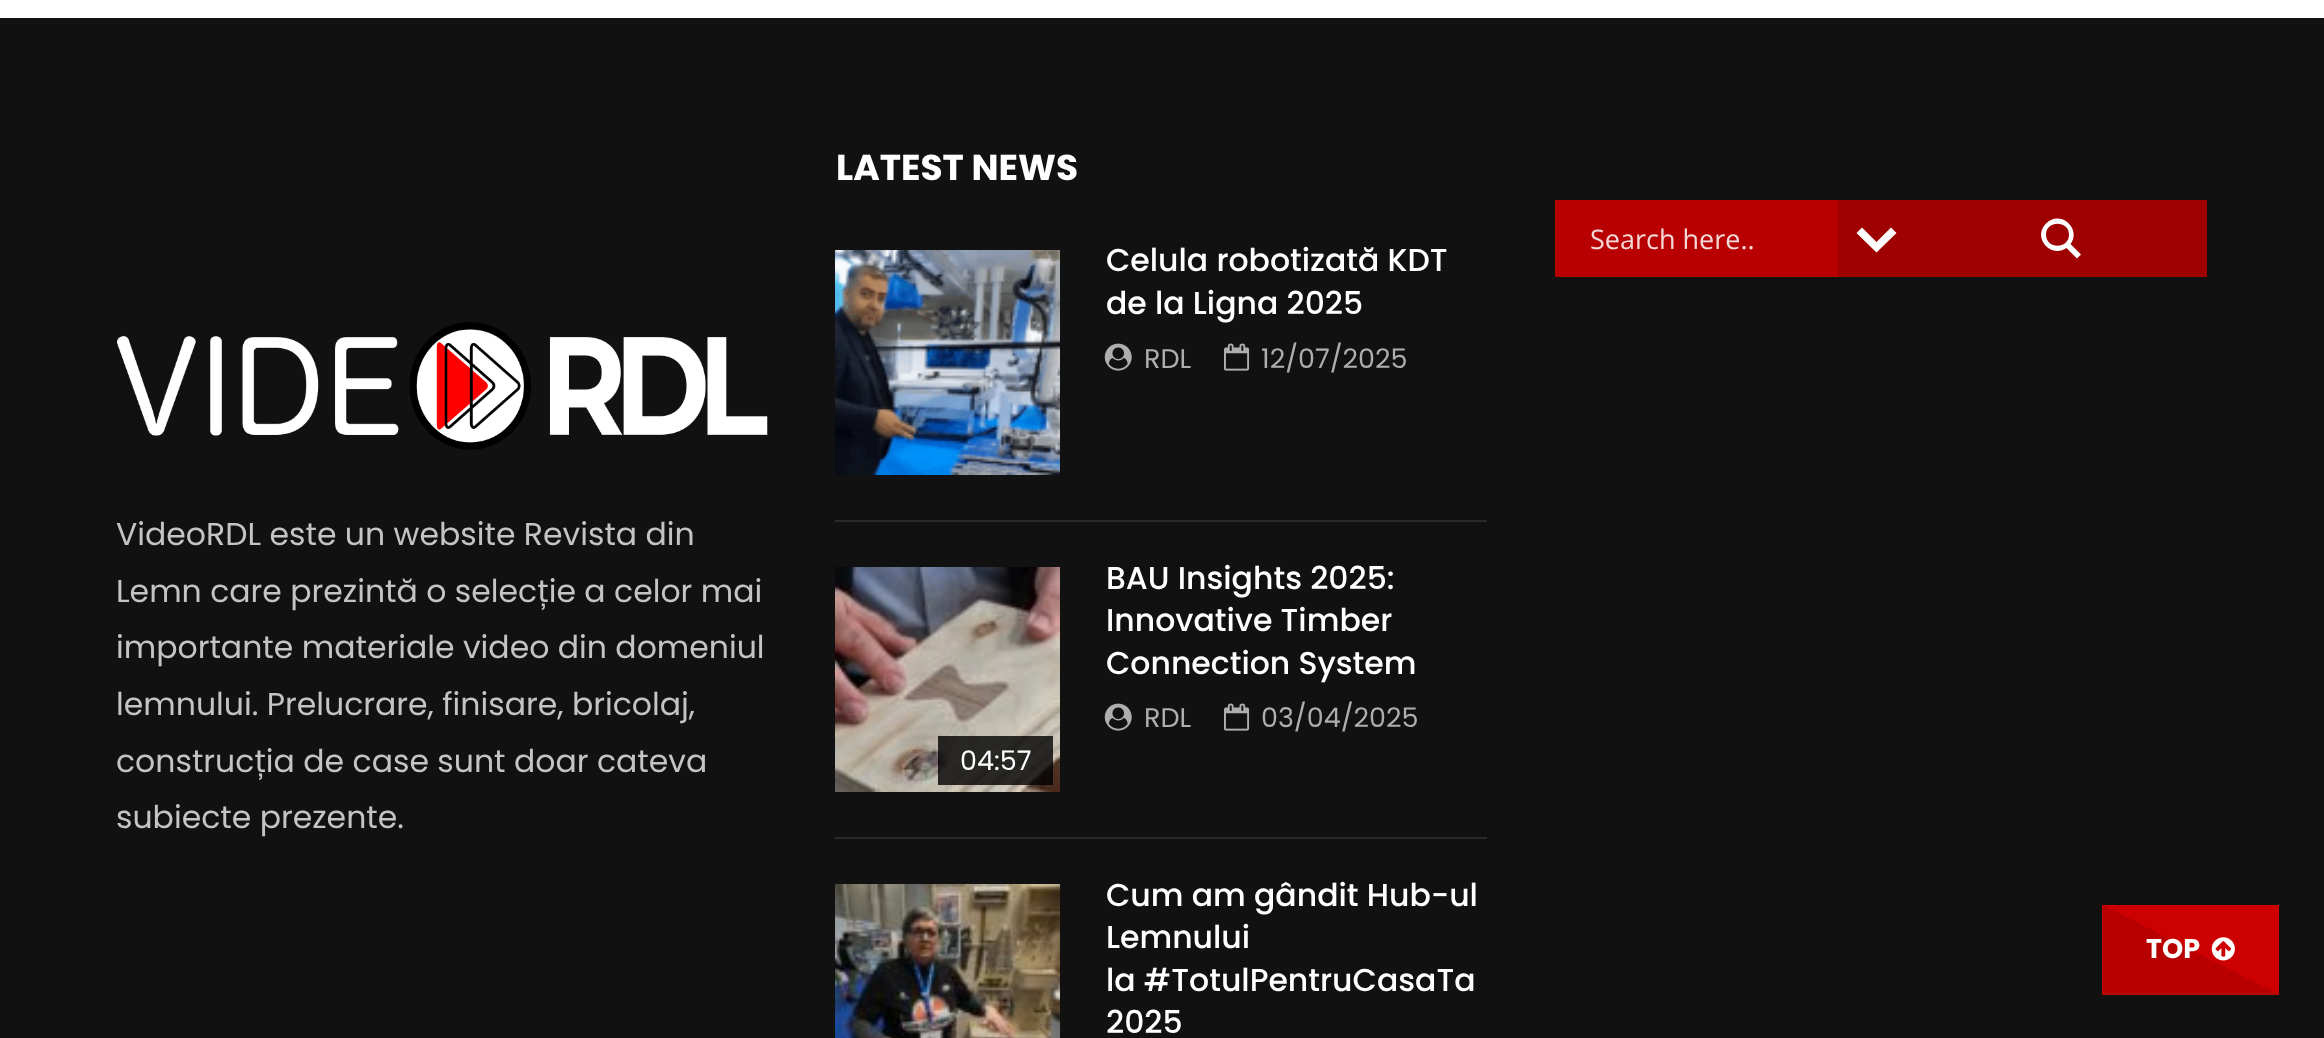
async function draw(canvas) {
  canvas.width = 2324
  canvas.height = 1038
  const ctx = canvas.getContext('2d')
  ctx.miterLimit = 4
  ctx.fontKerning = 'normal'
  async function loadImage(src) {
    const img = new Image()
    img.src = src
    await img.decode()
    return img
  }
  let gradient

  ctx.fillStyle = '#fff'
  ctx.fillRect(0, 0, 2324, 1038)
  ctx.fillStyle = '#111'
  ctx.fillRect(0, 18, 2324, 1020)
  ctx.font = 'bold 36px Poppins'
  ctx.fillStyle = '#fff'
  ctx.fillText('LATEST NEWS', 836, 180)
  ctx.fillStyle = '#292929'
  ctx.fillRect(835, 520, 652, 2)
  ctx.drawImage(await loadImage('image0.png'), 835, 250, 225, 225)
  ctx.font = '500 31.5px Poppins'
  ctx.fillStyle = '#fff'
  ctx.fillText('Celula robotizată KDT', 1106, 271)
  ctx.fillText('de la Ligna 2025', 1106, 314)
  ctx.drawImage(await loadImage('image1.png'), 1104, 343, 28, 28)
  ctx.font = '27px Poppins'
  ctx.fillStyle = '#aeaeae'
  ctx.fillText('RDL', 1144, 368)
  ctx.drawImage(await loadImage('image2.png'), 1224, 343, 26, 28)
  ctx.fillText('12/07/2025', 1261, 368)
  ctx.fillStyle = '#292929'
  ctx.fillRect(835, 837, 652, 2)
  ctx.font = '500 31.5px Poppins'
  ctx.fillStyle = '#fff'
  ctx.fillText('BAU Insights 2025:', 1106, 589)
  ctx.fillText('Innovative Timber', 1106, 631)
  ctx.fillText('Connection System', 1106, 674)
  ctx.drawImage(await loadImage('image1.png'), 1104, 703, 28, 28)
  ctx.font = '27px Poppins'
  ctx.fillStyle = '#aeaeae'
  ctx.fillText('RDL', 1144, 727)
  ctx.drawImage(await loadImage('image2.png'), 1224, 703, 26, 28)
  ctx.fillText('03/04/2025', 1261, 727)
  ctx.drawImage(await loadImage('image3.png'), 835, 567, 225, 225)
  ctx.fillStyle = '#000000cc'
  ctx.fillRect(938, 736, 115, 49)
  ctx.fillStyle = '#fff'
  ctx.fillText('04:57', 960, 770)
  ctx.drawImage(await loadImage('image4.png'), 835, 884, 225, 154)
  ctx.font = '500 31.5px Poppins'
  ctx.fillText('Cum am gândit Hub-ul', 1106, 906)
  ctx.fillText('Lemnului', 1106, 948)
  ctx.fillText('la #TotulPentruCasaTa', 1106, 991)
  ctx.fillText('2025', 1106, 1033)
  ctx.fillStyle = '#b80000'
  ctx.fillRect(1555, 200, 283, 77)
  ctx.fillStyle = '#9f0000'
  ctx.fillRect(1838, 200, 369, 77)
  ctx.fillStyle = '#fff'
  ctx.beginPath()
  ctx.moveTo(1891, 227.5)
  ctx.lineTo(1896.5, 233)
  ctx.lineTo(1876.5, 252.5)
  ctx.lineTo(1856.5, 233)
  ctx.lineTo(1862, 227.5)
  ctx.lineTo(1876.5, 242)
  ctx.closePath()
  ctx.fill()
  ctx.font = '27px Open Sans'
  ctx.fillStyle = '#f4d9d9'
  ctx.fillText('Search here..', 1590, 249)
  ctx.fillStyle = '#fff'
  ctx.beginPath()
  ctx.moveTo(2081, 254.5)
  ctx.lineTo(2070.5, 244)
  ctx.bezierCurveTo(2082, 228.5, 2060, 209, 2046, 223.5)
  ctx.bezierCurveTo(2032, 237.5, 2051, 259, 2066.5, 248)
  ctx.lineTo(2077, 258.5)
  ctx.closePath()
  ctx.moveTo(2046, 234.5)
  ctx.bezierCurveTo(2046, 220, 2069, 220, 2069, 234.5)
  ctx.bezierCurveTo(2069, 249.5, 2046, 249.5, 2046, 234.5)
  ctx.closePath()
  ctx.fill()
  ctx.drawImage(await loadImage('image5.png'), 117, 322, 651, 128)
  ctx.font = '31.5px Poppins'
  ctx.fillStyle = '#c4c4c4'
  ctx.fillText('VideoRDL este un website Revista din', 116, 545)
  ctx.fillText('Lemn care prezintă o selecție a celor mai', 116, 602)
  ctx.fillText('importante materiale video din domeniul', 116, 658)
  ctx.fillText('lemnului. Prelucrare, finisare, bricolaj,', 116, 715)
  ctx.fillText('construcția de case sunt doar cateva', 116, 772)
  ctx.fillText('subiecte prezente.', 116, 828)
  gradient = ctx.createLinearGradient(2227, 878, 2154, 1021)
  gradient.addColorStop(0.5, '#c00')
  gradient.addColorStop(0.5, '#b80000')
  ctx.fillStyle = gradient
  ctx.fillRect(2102, 905, 177, 90)
  ctx.font = 'bold 27px Poppins'
  ctx.fillStyle = '#fff'
  ctx.fillText('TOP', 2146, 958)
  ctx.drawImage(await loadImage('image6.png'), 2211, 937, 24, 24)
}

draw(document.querySelector('canvas'))
